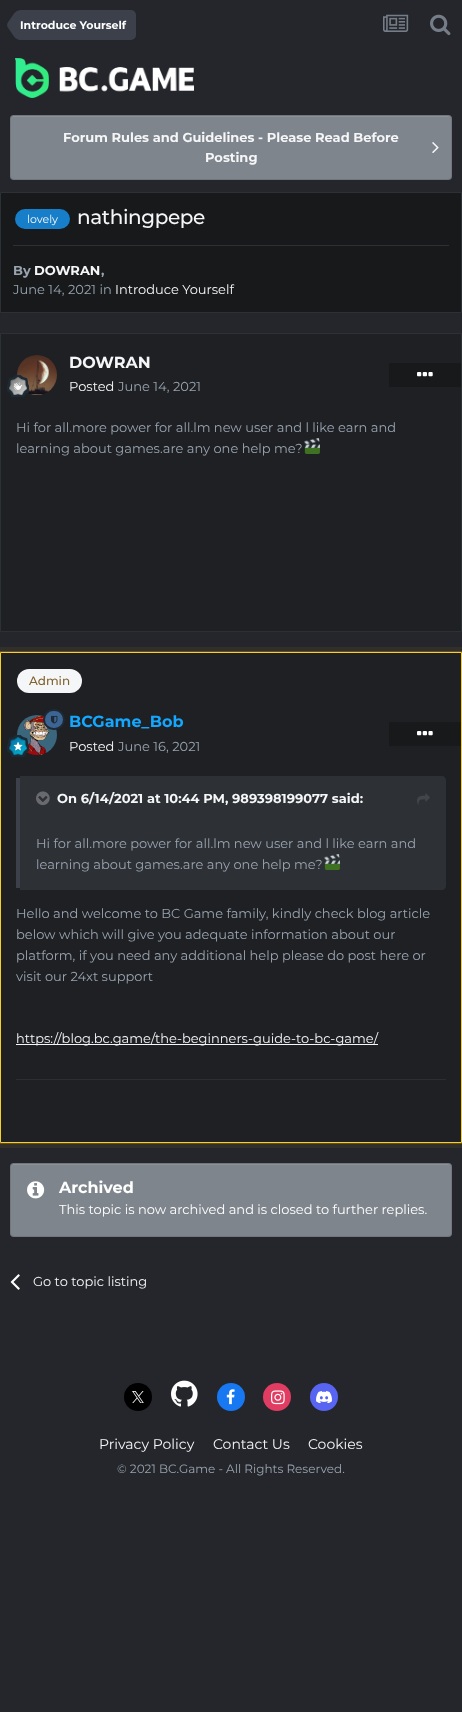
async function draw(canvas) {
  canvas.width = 462
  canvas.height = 1712
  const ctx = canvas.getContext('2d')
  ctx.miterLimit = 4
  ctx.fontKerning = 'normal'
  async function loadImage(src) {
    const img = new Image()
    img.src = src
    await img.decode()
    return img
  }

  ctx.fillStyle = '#24262b'
  ctx.fillRect(0, 0, 462, 1712)
  ctx.fillStyle = '#3c404a'
  ctx.beginPath()
  ctx.roundRect(20, 10, 116, 30, [0, 5, 5, 0])
  ctx.fill()
  ctx.beginPath()
  ctx.moveTo(26, 13.5)
  ctx.lineTo(28, 16.5)
  ctx.bezierCurveTo(31, 21, 31, 29, 28, 33.5)
  ctx.lineTo(26, 36.5)
  ctx.bezierCurveTo(22.5, 41, 17.5, 41, 14, 36.5)
  ctx.lineTo(7.5, 27)
  ctx.bezierCurveTo(7, 26, 7, 24, 7.5, 23)
  ctx.lineTo(14, 13.5)
  ctx.bezierCurveTo(17.5, 9, 22.5, 9, 26, 13.5)
  ctx.closePath()
  ctx.fill()
  ctx.font = 'bold 11px Montserrat'
  ctx.fillStyle = '#fff'
  ctx.fillText('Introduce Yourself', 20, 29)
  ctx.drawImage(await loadImage('image0.png'), 383, 14, 26, 18)
  ctx.drawImage(await loadImage('image1.png'), 430, 14, 21, 22)
  ctx.drawImage(await loadImage('image2.png'), 15, 58, 179, 40)
  ctx.fillStyle = '#7f858d'
  ctx.beginPath()
  ctx.roundRect(10, 115, 442, 65, 4)
  ctx.fill()
  ctx.fillStyle = '#8c9198'
  ctx.beginPath()
  ctx.moveTo(14, 117)
  ctx.lineTo(448, 117)
  ctx.bezierCurveTo(450, 117, 451, 118, 451, 120)
  ctx.bezierCurveTo(451, 118, 450, 116, 448, 116)
  ctx.lineTo(13, 116)
  ctx.lineTo(11, 118)
  ctx.lineTo(11, 120)
  ctx.bezierCurveTo(11, 118, 12, 117, 14, 117)
  ctx.closePath()
  ctx.fill()
  ctx.beginPath()
  ctx.roundRect(10.5, 115.5, 441, 64, 3.5)
  ctx.strokeStyle = '#0000001a'
  ctx.stroke()
  ctx.font = 'bold 13px Montserrat'
  ctx.fillStyle = '#f5f6f7'
  ctx.fillText('Forum Rules and Guidelines - Please Read Before', 63, 142)
  ctx.drawImage(await loadImage('image3.png'), 432, 142, 7, 11)
  ctx.fillText('Posting', 205, 162)
  ctx.fillStyle = '#17191b'
  ctx.beginPath()
  ctx.rect(0.5, 192.5, 461, 120)
  ctx.fill()
  ctx.strokeStyle = '#2d3035'
  ctx.stroke()
  ctx.fillStyle = '#177ec9'
  ctx.beginPath()
  ctx.roundRect(15, 209, 55, 20, 10)
  ctx.fill()
  ctx.font = '11px Montserrat'
  ctx.fillStyle = '#f5f6f7'
  ctx.fillText('lovely', 27, 223)
  ctx.letterSpacing = '-0.4px'
  ctx.font = '500 20px Montserrat'
  ctx.fillText('nathingpepe', 77, 224)
  ctx.fillStyle = '#2d3037'
  ctx.fillRect(13, 245, 436, 1)
  ctx.letterSpacing = '0px'
  ctx.font = 'bold 13px Montserrat'
  ctx.fillStyle = '#99a4b0'
  ctx.fillText('By', 13, 275)
  ctx.fillStyle = '#f5f6f7'
  ctx.fillText('DOWRAN', 34, 275)
  ctx.fillStyle = '#99a4b0'
  ctx.fillText(',', 101, 275)
  ctx.font = '13px Montserrat'
  ctx.fillText('June 14, 2021 in', 13, 294)
  ctx.fillStyle = '#f5f6f7'
  ctx.fillText('Introduce Yourself', 115, 294)
  ctx.fillStyle = '#1e2024'
  ctx.beginPath()
  ctx.rect(0.5, 333.5, 461, 298)
  ctx.fill()
  ctx.stroke()
  ctx.drawImage(await loadImage('image4.png'), 17, 355, 40, 40)
  ctx.drawImage(await loadImage('image5.png'), 7, 375, 22, 22)
  ctx.font = 'bold 16px Montserrat'
  ctx.fillStyle = '#f5f6f7'
  ctx.fillText('DOWRAN', 69, 368)
  ctx.font = '13px Montserrat'
  ctx.fillText('Posted', 69, 391)
  ctx.fillStyle = '#99a4b0'
  ctx.fillText('June 14, 2021', 118, 391)
  ctx.fillStyle = '#17191b'
  ctx.fillRect(389, 363, 72, 24)
  ctx.drawImage(await loadImage('image6.png'), 417, 372, 16, 5)
  ctx.fillStyle = '#99a4b0'
  ctx.fillText('Hi for all.more power for all.lm new user and l like earn and', 16, 432)
  ctx.fillText('learning about games.are any one help me?', 16, 453)
  ctx.drawImage(await loadImage('image7.png'), 304, 438, 16, 16)
  ctx.strokeStyle = '#322f2b'
  ctx.lineWidth = 5
  ctx.strokeRect(-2.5, 649.5, 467, 496)
  ctx.strokeStyle = '#614e2d'
  ctx.lineWidth = 1
  ctx.strokeRect(-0.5, 651.5, 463, 492)
  ctx.fillStyle = '#1e2024'
  ctx.beginPath()
  ctx.rect(0.5, 652.5, 461, 490)
  ctx.fill()
  ctx.strokeStyle = '#f7cf27'
  ctx.stroke()
  ctx.fillStyle = '#f5f6f7'
  ctx.beginPath()
  ctx.roundRect(17, 669, 65, 24, 12)
  ctx.fill()
  ctx.font = '500 12px Montserrat'
  ctx.fillStyle = '#81622e'
  ctx.fillText('Admin', 29, 685)
  ctx.drawImage(await loadImage('image9.png'), 17, 715, 40, 40)
  ctx.fillStyle = '#3d6594'
  ctx.beginPath()
  ctx.roundRect(44, 710, 20, 19, 9.5)
  ctx.fill()
  ctx.strokeStyle = '#1d2a34'
  ctx.lineWidth = 2
  ctx.stroke()
  ctx.drawImage(await loadImage('image8.png'), 51, 715, 7, 9)
  ctx.drawImage(await loadImage('image10.png'), 7, 735, 22, 22)
  ctx.font = 'bold 16px Montserrat'
  ctx.fillStyle = '#14a7ff'
  ctx.fillText('BCGame_Bob', 69, 727)
  ctx.font = '13px Montserrat'
  ctx.fillStyle = '#f5f6f7'
  ctx.fillText('Posted', 69, 751)
  ctx.fillStyle = '#99a4b0'
  ctx.fillText('June 16, 2021', 118, 751)
  ctx.fillStyle = '#17191b'
  ctx.fillRect(389, 722, 72, 24)
  ctx.drawImage(await loadImage('image6.png'), 417, 731, 16, 5)
  ctx.fillStyle = '#2d3035'
  ctx.beginPath()
  ctx.moveTo(20, 776)
  ctx.lineTo(442, 776)
  ctx.bezierCurveTo(444, 776, 446, 778, 446, 780)
  ctx.lineTo(446, 886)
  ctx.bezierCurveTo(446, 888, 444, 890, 442, 890)
  ctx.lineTo(20, 890)
  ctx.closePath()
  ctx.fill()
  ctx.fillStyle = '#3c404a'
  ctx.fillRect(16, 778, 4, 110)
  ctx.drawImage(await loadImage('image11.png'), 36, 791, 14, 15)
  ctx.font = 'bold 13px Montserrat'
  ctx.fillStyle = '#f5f6f7'
  ctx.fillText('On 6/14/2021 at 10:44 PM, 989398199077 said:', 57, 803)
  ctx.drawImage(await loadImage('image12.png'), 417, 793, 13, 12)
  ctx.font = '13px Montserrat'
  ctx.fillStyle = '#99a4b0'
  ctx.fillText('Hi for all.more power for all.lm new user and l like earn and', 36, 848)
  ctx.fillText('learning about games.are any one help me?', 36, 869)
  ctx.drawImage(await loadImage('image13.png'), 324, 854, 16, 16)
  ctx.fillText('Hello and welcome to BC Game family, kindly check blog article', 16, 918)
  ctx.fillText('below which will give you adequate information about our', 16, 939)
  ctx.fillText('platform, if you need any additional help please do post here or', 16, 960)
  ctx.fillText('visit our 24xt support', 16, 981)
  ctx.fillStyle = '#f5f6f7'
  ctx.fillRect(16, 1044, 362, 1)
  ctx.fillText('https://blog.bc.game/the-beginners-guide-to-bc-game/', 16, 1043)
  ctx.fillStyle = '#2a2e35'
  ctx.fillRect(16, 1079, 430, 1)
  ctx.fillStyle = '#7f858d'
  ctx.beginPath()
  ctx.roundRect(10, 1163, 442, 74, 4)
  ctx.fill()
  ctx.fillStyle = '#8c9198'
  ctx.beginPath()
  ctx.moveTo(14, 1165)
  ctx.lineTo(448, 1165)
  ctx.bezierCurveTo(450, 1165, 451, 1166, 451, 1168)
  ctx.bezierCurveTo(451, 1166, 450, 1164, 448, 1164)
  ctx.lineTo(13, 1164)
  ctx.lineTo(11, 1166)
  ctx.lineTo(11, 1168)
  ctx.bezierCurveTo(11, 1166, 12, 1165, 14, 1165)
  ctx.closePath()
  ctx.fill()
  ctx.beginPath()
  ctx.roundRect(10.5, 1163.5, 441, 73, 3.5)
  ctx.strokeStyle = '#0000001a'
  ctx.lineWidth = 1
  ctx.stroke()
  ctx.drawImage(await loadImage('image14.png'), 27, 1181, 18, 18)
  ctx.font = 'bold 16px Montserrat'
  ctx.fillStyle = '#fff'
  ctx.fillText('Archived', 59, 1193)
  ctx.font = '13px Montserrat'
  ctx.fillText('This topic is now archived and is closed to further replies.', 59, 1214)
  ctx.drawImage(await loadImage('image15.png'), 10, 1274, 10, 16)
  ctx.fillStyle = '#f5f6f7'
  ctx.fillText('Go to topic listing', 33, 1286)
  ctx.fillStyle = '#000'
  ctx.beginPath()
  ctx.arc(138, 1397, 14, 0, 2 * Math.PI)
  ctx.fill()
  ctx.drawImage(await loadImage('image16.png'), 132, 1391, 12, 12)
  ctx.drawImage(await loadImage('image17.png'), 171, 1380, 27, 27)
  ctx.fillStyle = '#1778f2'
  ctx.beginPath()
  ctx.arc(231, 1397, 14, 0, 2 * Math.PI)
  ctx.fill()
  ctx.drawImage(await loadImage('image18.png'), 226, 1389, 9, 16)
  ctx.fillStyle = '#e13d62'
  ctx.beginPath()
  ctx.arc(277, 1397, 14, 0, 2 * Math.PI)
  ctx.fill()
  ctx.drawImage(await loadImage('image19.png'), 271, 1390, 14, 15)
  ctx.fillStyle = '#5865f2'
  ctx.beginPath()
  ctx.arc(324, 1397, 14, 0, 2 * Math.PI)
  ctx.fill()
  ctx.drawImage(await loadImage('image20.png'), 316, 1391, 16, 12)
  ctx.font = '14px Montserrat'
  ctx.fillStyle = '#f5f6f7'
  ctx.fillText('Privacy Policy', 99, 1449)
  ctx.fillText('Contact Us', 213, 1449)
  ctx.fillText('Cookies', 308, 1449)
  ctx.font = '12px Montserrat'
  ctx.fillStyle = '#99a4b0'
  ctx.fillText('© 2021 BC.Game - All Rights Reserved.', 117, 1473)
}

draw(document.querySelector('canvas'))
